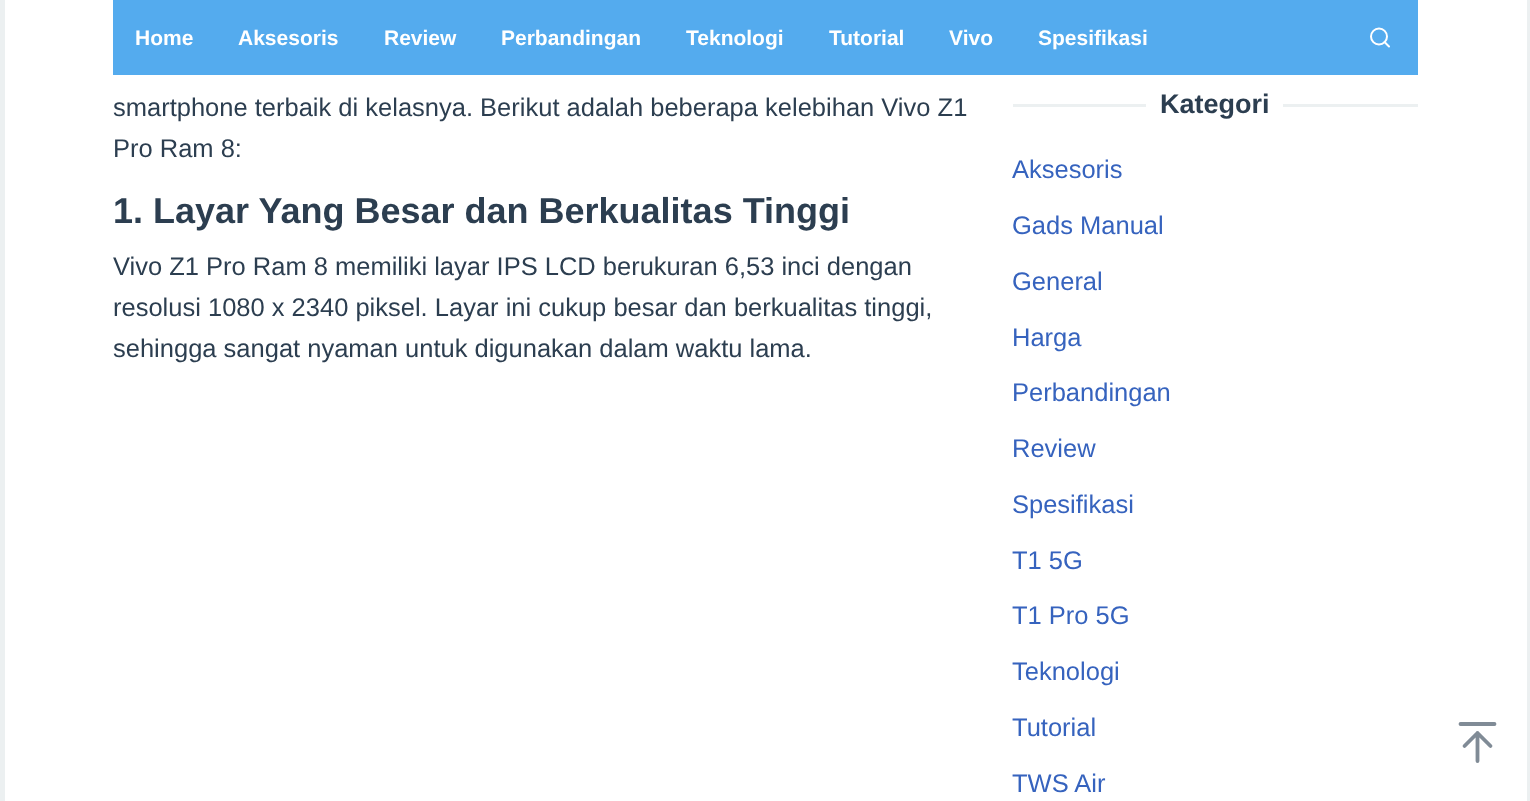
async function draw(canvas) {
  canvas.width = 1530
  canvas.height = 801
  const ctx = canvas.getContext('2d')
  ctx.miterLimit = 4
  ctx.fontKerning = 'normal'

  ctx.fillStyle = '#ecf0f1'
  ctx.fillRect(0, 0, 1530, 801)
  ctx.fillStyle = '#fff'
  ctx.fillRect(5, 0, 1522, 801)
  ctx.fillStyle = '#54abee'
  ctx.fillRect(113, 0, 1305, 75)
  ctx.font = 'bold 21px Liberation Sans'
  ctx.fillStyle = '#fff'
  ctx.fillText('Home', 135, 45)
  ctx.fillText('Aksesoris', 238, 45)
  ctx.fillText('Review', 384, 45)
  ctx.fillText('Perbandingan', 501, 45)
  ctx.fillText('Teknologi', 686, 45)
  ctx.fillText('Tutorial', 829, 45)
  ctx.fillText('Vivo', 949, 45)
  ctx.fillText('Spesifikasi', 1038, 45)
  ctx.beginPath()
  ctx.arc(1379, 36.5, 8, 0, 2 * Math.PI)
  ctx.strokeStyle = '#fff'
  ctx.lineWidth = 2
  ctx.stroke()
  ctx.beginPath()
  ctx.moveTo(1389, 46.5)
  ctx.lineTo(1384.5, 42)
  ctx.lineCap = 'round'
  ctx.lineJoin = 'round'
  ctx.stroke()
  ctx.font = '25.5px Liberation Sans'
  ctx.fillStyle = '#2c3e50'
  ctx.fillText('smartphone terbaik di kelasnya. Berikut adalah beberapa kelebihan Vivo Z1', 113, 116)
  ctx.fillText('Pro Ram 8:', 113, 157)
  ctx.font = 'bold 36px Liberation Sans'
  ctx.fillText('1. Layar Yang Besar dan Berkualitas Tinggi', 113, 223)
  ctx.font = '25.5px Liberation Sans'
  ctx.fillText('Vivo Z1 Pro Ram 8 memiliki layar IPS LCD berukuran 6,53 inci dengan', 113, 275)
  ctx.fillText('resolusi 1080 x 2340 piksel. Layar ini cukup besar dan berkualitas tinggi,', 113, 316)
  ctx.fillText('sehingga sangat nyaman untuk digunakan dalam waktu lama.', 113, 357)
  ctx.fillStyle = '#ecf0f1'
  ctx.fillRect(1013, 104, 133, 3)
  ctx.font = 'bold 27px Liberation Sans'
  ctx.fillStyle = '#2c3e50'
  ctx.fillText('Kategori', 1160, 113)
  ctx.fillStyle = '#ecf0f1'
  ctx.fillRect(1283, 104, 135, 3)
  ctx.font = '25.5px Liberation Sans'
  ctx.fillStyle = '#3663be'
  ctx.fillText('Aksesoris', 1012, 178)
  ctx.fillText('Gads Manual', 1012, 234)
  ctx.fillText('General', 1012, 290)
  ctx.fillText('Harga', 1012, 346)
  ctx.fillText('Perbandingan', 1012, 401)
  ctx.fillText('Review', 1012, 457)
  ctx.fillText('Spesifikasi', 1012, 513)
  ctx.fillText('T1 5G', 1012, 569)
  ctx.fillText('T1 Pro 5G', 1012, 624)
  ctx.fillText('Teknologi', 1012, 680)
  ctx.fillText('Tutorial', 1012, 736)
  ctx.fillText('TWS Air', 1012, 792)
  ctx.beginPath()
  ctx.moveTo(1477.5, 761)
  ctx.lineTo(1477.5, 733)
  ctx.moveTo(1464.5, 746)
  ctx.lineTo(1477.5, 733)
  ctx.lineTo(1490.5, 746)
  ctx.moveTo(1460.5, 724)
  ctx.lineTo(1494.5, 724)
  ctx.strokeStyle = '#808b96'
  ctx.lineWidth = 3.8
  ctx.stroke()
}

draw(document.querySelector('canvas'))
